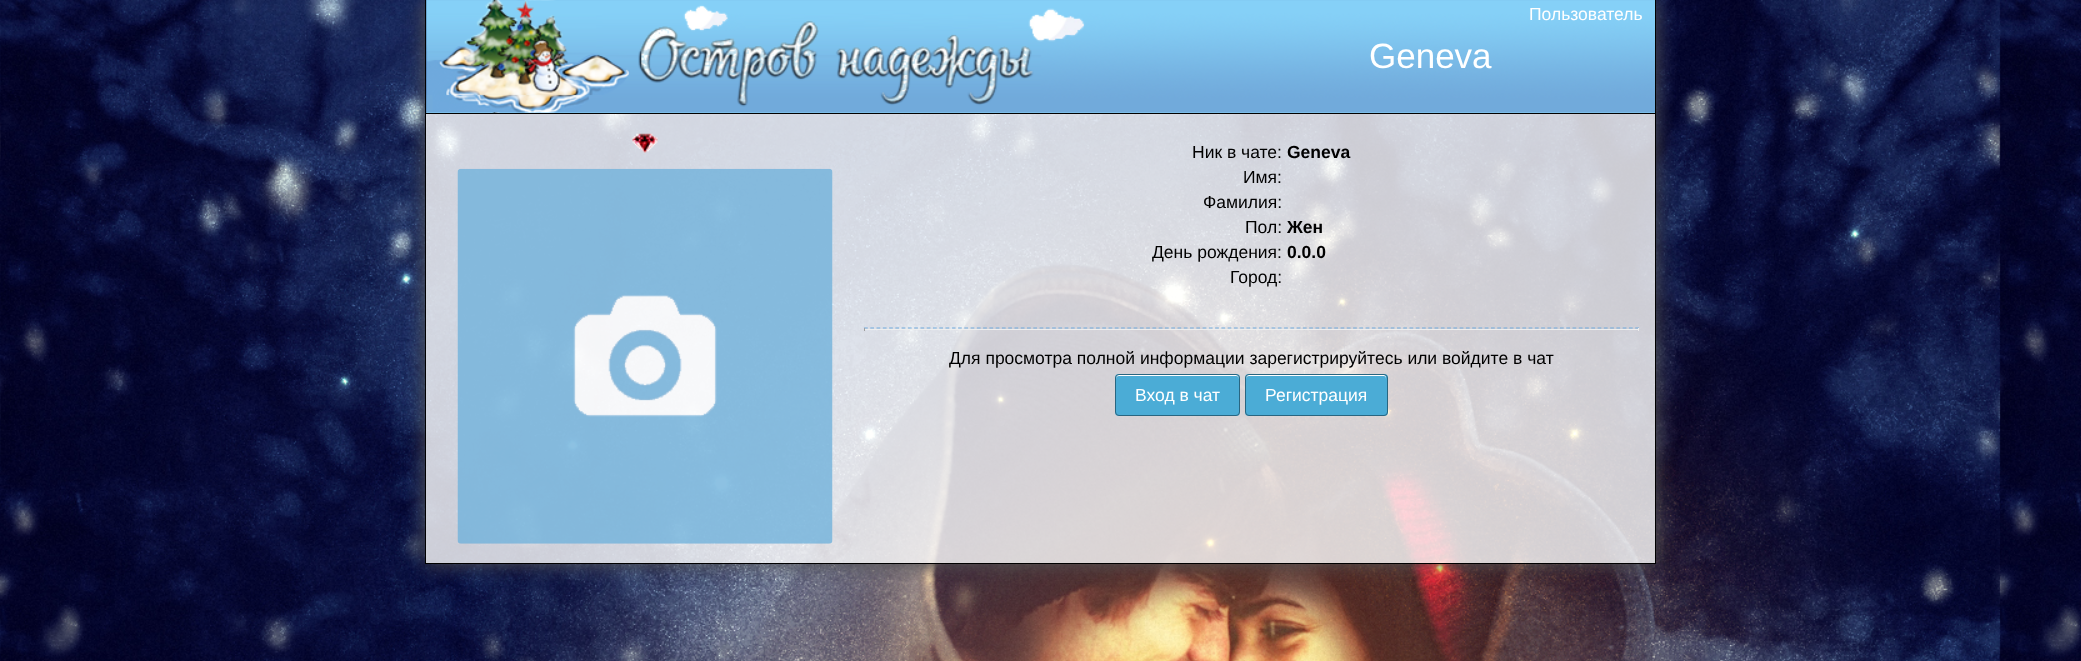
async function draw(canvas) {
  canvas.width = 2081
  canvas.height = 661
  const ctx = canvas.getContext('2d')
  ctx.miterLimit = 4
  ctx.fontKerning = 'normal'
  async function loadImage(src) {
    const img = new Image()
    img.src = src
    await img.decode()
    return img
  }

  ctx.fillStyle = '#fff'
  ctx.fillRect(0, 0, 2081, 661)
  ctx.drawImage(await loadImage('image0.png'), 0, 0, 2081, 661)
  ctx.save()
  ctx.beginPath()
  ctx.moveTo(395, 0)
  ctx.lineTo(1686, 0)
  ctx.lineTo(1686, 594)
  ctx.lineTo(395, 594)
  ctx.closePath()
  ctx.moveTo(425, 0)
  ctx.lineTo(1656, 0)
  ctx.lineTo(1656, 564)
  ctx.lineTo(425, 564)
  ctx.closePath()
  ctx.clip('evenodd')
  ctx.fillStyle = '#555'
  ctx.filter = 'blur(9.5px)'
  ctx.beginPath()
  ctx.rect(425, 0, 1231, 564)
  ctx.fill()
  ctx.filter = 'none'
  ctx.restore()
  ctx.fillStyle = '#000'
  ctx.fillRect(1655, 0, 1, 564)
  ctx.fillRect(425, 563, 1231, 1)
  ctx.fillRect(425, 0, 1, 564)
  ctx.drawImage(await loadImage('image1.png'), 426, 0, 1229, 113)
  ctx.fillRect(426, 113, 1229, 1)
  ctx.font = '17.5px Liberation Sans'
  ctx.fillStyle = '#fff'
  ctx.fillText('Пользователь', 1529, 20)
  ctx.font = '35px Liberation Sans'
  ctx.fillText('Geneva', 1369, 68)
  ctx.fillStyle = '#ffffffcc'
  ctx.fillRect(426, 114, 1229, 449)
  ctx.drawImage(await loadImage('image2.png'), 632, 133, 26, 20)
  ctx.drawImage(await loadImage('image3.png'), 457, 168, 376, 376)
  ctx.font = '17.5px Liberation Sans'
  ctx.fillStyle = '#000'
  ctx.fillText('Ник в чате:', 1192, 158)
  ctx.font = 'bold 17.5px Liberation Sans'
  ctx.fillText('Geneva', 1287, 158)
  ctx.font = '17.5px Liberation Sans'
  ctx.fillText('Имя:', 1243, 183)
  ctx.fillText('Фамилия:', 1203, 208)
  ctx.fillText('Пол:', 1245, 233)
  ctx.font = 'bold 17.5px Liberation Sans'
  ctx.fillText('Жен', 1287, 233)
  ctx.font = '17.5px Liberation Sans'
  ctx.fillText('День рождения:', 1152, 258)
  ctx.font = 'bold 17.5px Liberation Sans'
  ctx.fillText('0.0.0', 1287, 258)
  ctx.font = '17.5px Liberation Sans'
  ctx.fillText('Город:', 1230, 283)
  ctx.beginPath()
  ctx.moveTo(864, 328)
  ctx.lineTo(1639, 328)
  ctx.strokeStyle = '#71aadb'
  ctx.lineWidth = 1.2
  ctx.setLineDash([3.75, 2.52])
  ctx.stroke()
  ctx.fillStyle = '#eee'
  ctx.fillRect(1638, 328, 1, 3)
  ctx.fillRect(864, 329, 775, 1)
  ctx.fillStyle = '#9f9f9f'
  ctx.fillRect(864, 328, 1, 3)
  ctx.fillStyle = '#000'
  ctx.fillText('Для просмотра полной информации зарегистрируйтесь или войдите в чат', 949, 364)
  ctx.fillStyle = '#4bacd6'
  ctx.beginPath()
  ctx.roundRect(1115, 374, 125, 42, 4)
  ctx.fill()
  ctx.fillStyle = '#fff'
  ctx.beginPath()
  ctx.moveTo(1119, 376)
  ctx.lineTo(1236, 376)
  ctx.bezierCurveTo(1238, 376, 1239, 377, 1239, 379)
  ctx.lineTo(1239, 378)
  ctx.bezierCurveTo(1239, 376, 1238, 375, 1236, 375)
  ctx.lineTo(1118, 375)
  ctx.bezierCurveTo(1117, 375, 1116, 376, 1116, 378)
  ctx.lineTo(1116, 379)
  ctx.bezierCurveTo(1116, 377, 1117, 376, 1119, 376)
  ctx.closePath()
  ctx.fill()
  ctx.beginPath()
  ctx.roundRect(1115.5, 374.5, 124, 41, 3.5)
  ctx.strokeStyle = '#296681'
  ctx.lineWidth = 1
  ctx.setLineDash([])
  ctx.stroke()
  ctx.fillText('Вход в чат', 1135, 401)
  ctx.fillStyle = '#4bacd6'
  ctx.beginPath()
  ctx.roundRect(1245, 374, 143, 42, 4)
  ctx.fill()
  ctx.fillStyle = '#fff'
  ctx.beginPath()
  ctx.moveTo(1249, 376)
  ctx.lineTo(1384, 376)
  ctx.bezierCurveTo(1385, 376, 1386, 377, 1386, 379)
  ctx.lineTo(1386, 378)
  ctx.bezierCurveTo(1386, 376, 1385, 375, 1384, 375)
  ctx.lineTo(1248, 375)
  ctx.bezierCurveTo(1247, 375, 1246, 376, 1246, 378)
  ctx.lineTo(1246, 379)
  ctx.bezierCurveTo(1246, 377, 1247, 376, 1249, 376)
  ctx.closePath()
  ctx.fill()
  ctx.beginPath()
  ctx.roundRect(1245.5, 374.5, 142, 41, 3.5)
  ctx.stroke()
  ctx.fillText('Регистрация', 1265, 401)
}

draw(document.querySelector('canvas'))
